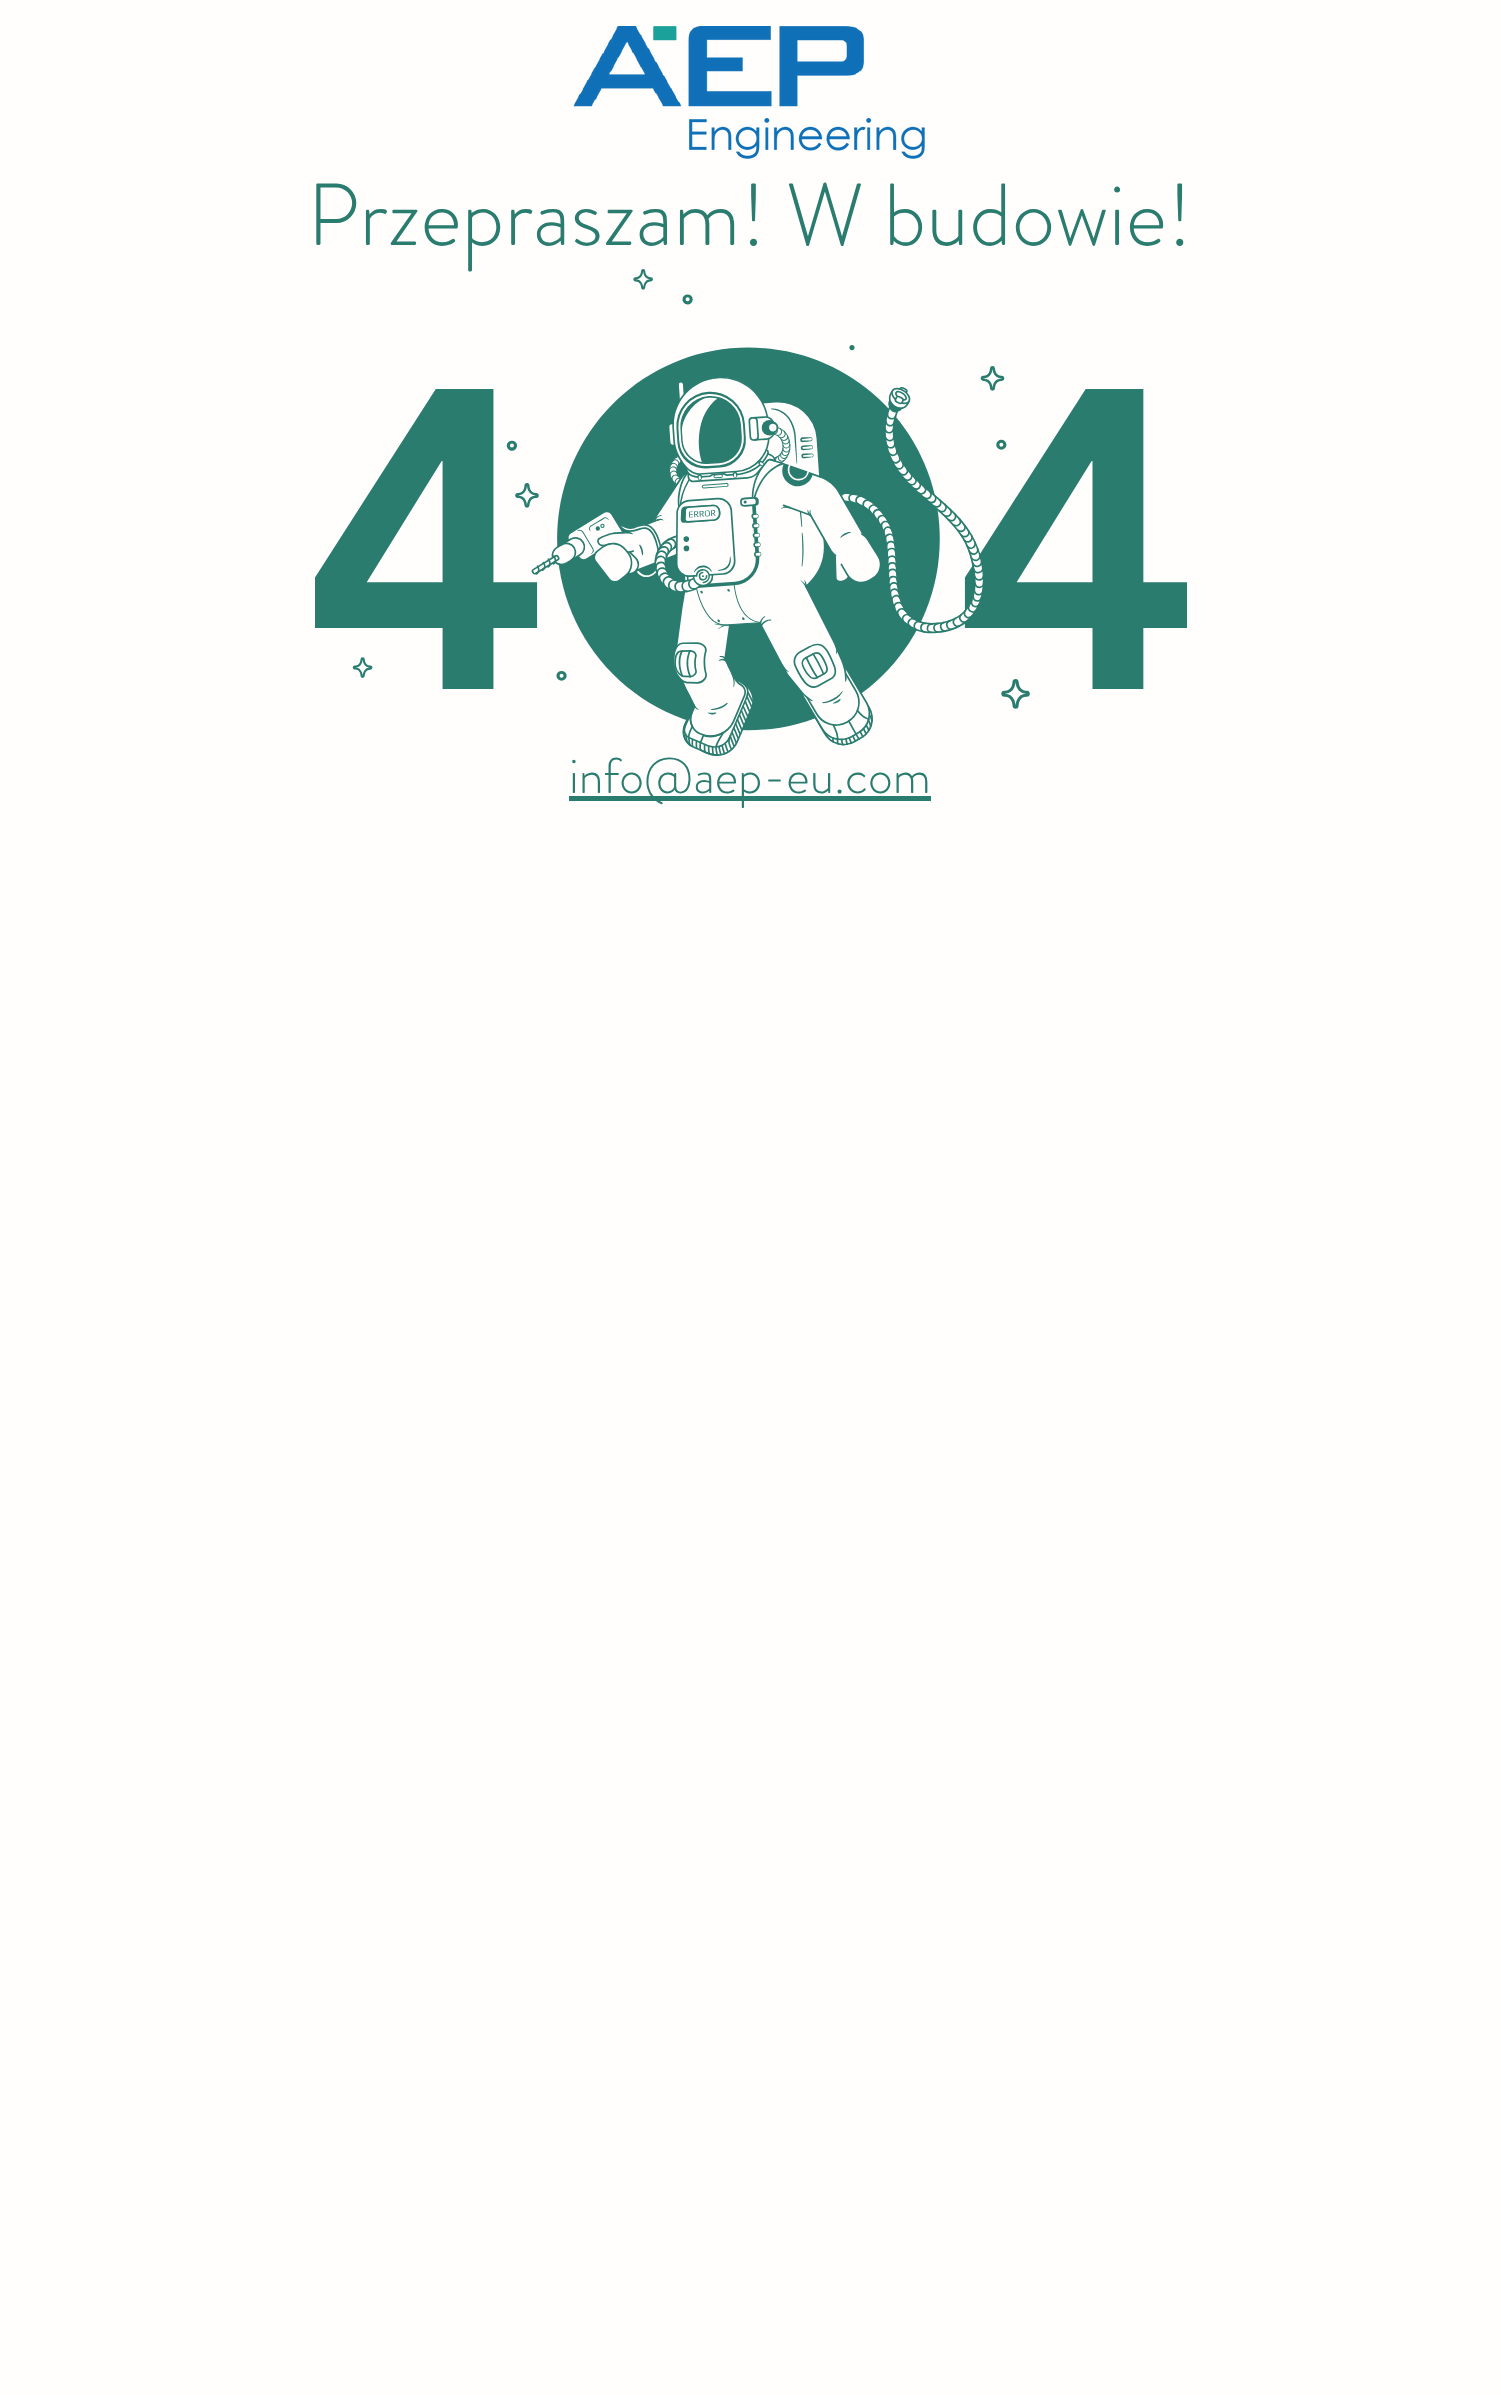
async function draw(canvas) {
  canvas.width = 1501
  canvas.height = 2395
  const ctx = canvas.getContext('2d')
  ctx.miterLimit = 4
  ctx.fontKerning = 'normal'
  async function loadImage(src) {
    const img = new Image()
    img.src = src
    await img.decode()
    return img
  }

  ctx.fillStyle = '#fffefc'
  ctx.fillRect(0, 0, 1501, 2395)
  ctx.drawImage(await loadImage('image0.png'), 573, 26, 352, 133)
  ctx.font = '300 88px "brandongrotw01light"'
  ctx.fillStyle = '#2a7c6f'
  ctx.fillText('Przepraszam! W budowie!', 307, 245)
  ctx.drawImage(await loadImage('image1.png'), 315, 269, 872, 487)
  ctx.fillRect(569, 796, 362, 5)
  ctx.font = '300 50px "brandongrotw01light"'
  ctx.fillText('info@aep-eu.com', 569, 793)
}

draw(document.querySelector('canvas'))
